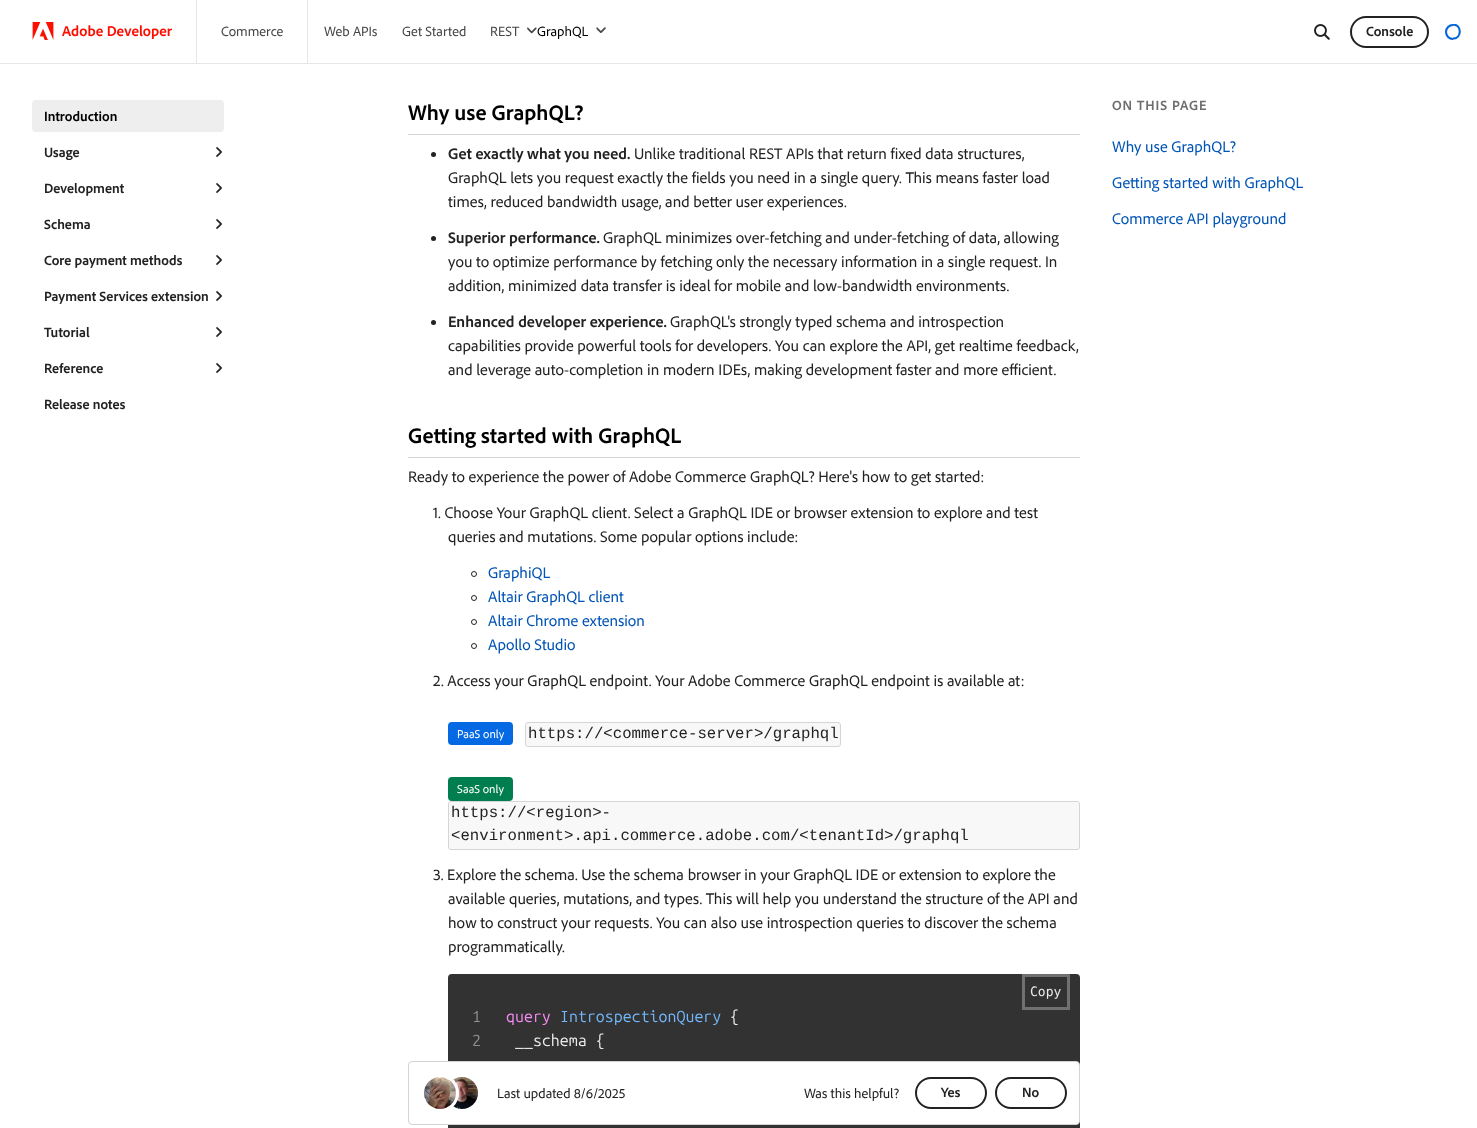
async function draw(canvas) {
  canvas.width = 1477
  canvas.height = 1128
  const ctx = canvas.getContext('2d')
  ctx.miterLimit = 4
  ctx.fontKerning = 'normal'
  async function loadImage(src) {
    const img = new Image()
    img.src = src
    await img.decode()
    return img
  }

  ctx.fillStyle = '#fff'
  ctx.fillRect(0, 0, 1477, 1128)
  ctx.fillStyle = '#e6e6e6'
  ctx.fillRect(0, 63, 1477, 1)
  ctx.drawImage(await loadImage('image0.png'), 32, 22, 22, 18)
  ctx.font = 'bold 15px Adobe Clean'
  ctx.fillStyle = '#fa0f00'
  ctx.fillText('Adobe Developer', 62, 36)
  ctx.fillStyle = '#e6e6e6'
  ctx.fillRect(307, 0, 1, 64)
  ctx.fillRect(196, 0, 1, 64)
  ctx.font = '14px Adobe Clean'
  ctx.fillStyle = '#464646'
  ctx.fillText('Commerce', 221, 36)
  ctx.fillText('Web APIs', 324, 36)
  ctx.fillText('Get Started', 402, 36)
  ctx.fillText('REST', 490, 36)
  ctx.drawImage(await loadImage('image1.png'), 527, 27, 10, 7)
  ctx.fillStyle = '#000'
  ctx.fillText('GraphQL', 537, 36)
  ctx.drawImage(await loadImage('image2.png'), 596, 27, 10, 7)
  ctx.drawImage(await loadImage('image3.png'), 1314, 24, 16, 16)
  ctx.beginPath()
  ctx.roundRect(1351, 17, 77, 30, 15)
  ctx.strokeStyle = '#222'
  ctx.lineWidth = 2
  ctx.stroke()
  ctx.font = 'bold 14px Adobe Clean'
  ctx.fillStyle = '#222'
  ctx.fillText('Console', 1366, 36)
  ctx.beginPath()
  ctx.arc(1453, 32, 7, 0, 2 * Math.PI)
  ctx.strokeStyle = '#d5d5d5'
  ctx.stroke()
  ctx.save()
  ctx.beginPath()
  ctx.rect(1453, 24, 8, 16)
  ctx.clip()
  ctx.beginPath()
  ctx.moveTo(1453, 38.5)
  ctx.bezierCurveTo(1444, 38.5, 1444, 24.5, 1453, 24.5)
  ctx.bezierCurveTo(1462, 24.5, 1462, 38.5, 1453, 38.5)
  ctx.closePath()
  ctx.strokeStyle = '#0265dc'
  ctx.stroke()
  ctx.restore()
  ctx.save()
  ctx.beginPath()
  ctx.rect(1445, 24, 8, 16)
  ctx.clip()
  ctx.beginPath()
  ctx.arc(1453, 32, 7, 0, 2 * Math.PI)
  ctx.strokeStyle = '#0265dc'
  ctx.stroke()
  ctx.restore()
  ctx.fillStyle = '#eee'
  ctx.beginPath()
  ctx.roundRect(32, 100, 192, 32, 4)
  ctx.fill()
  ctx.fillStyle = '#000'
  ctx.fillText('Introduction', 44, 121)
  ctx.fillStyle = '#222'
  ctx.fillText('Usage', 44, 157)
  ctx.drawImage(await loadImage('image4.png'), 216, 147, 6, 10)
  ctx.fillText('Development', 44, 193)
  ctx.drawImage(await loadImage('image4.png'), 216, 183, 6, 10)
  ctx.fillText('Schema', 44, 229)
  ctx.drawImage(await loadImage('image4.png'), 216, 219, 6, 10)
  ctx.fillText('Core payment methods', 44, 265)
  ctx.drawImage(await loadImage('image4.png'), 216, 255, 6, 10)
  ctx.fillText('Payment Services extension', 44, 301)
  ctx.drawImage(await loadImage('image4.png'), 216, 291, 6, 10)
  ctx.fillText('Tutorial', 44, 337)
  ctx.drawImage(await loadImage('image4.png'), 216, 327, 6, 10)
  ctx.fillText('Reference', 44, 373)
  ctx.drawImage(await loadImage('image4.png'), 216, 363, 6, 10)
  ctx.fillText('Release notes', 44, 409)
  ctx.font = 'bold 22px Adobe Clean'
  ctx.fillStyle = '#000'
  ctx.fillText('Why use GraphQL?', 408, 120)
  ctx.fillStyle = '#d5d5d5'
  ctx.beginPath()
  ctx.roundRect(408, 134, 672, 1, 0.5)
  ctx.fill()
  ctx.fillStyle = '#222'
  ctx.beginPath()
  ctx.arc(433.5, 154.5, 2.5, 0, 2 * Math.PI)
  ctx.fill()
  ctx.font = 'bold 16px Adobe Clean'
  ctx.fillText('Get exactly what you need.', 448, 159)
  ctx.font = '16px Adobe Clean'
  ctx.fillText('Unlike traditional REST APIs that return fixed data structures,', 634, 159)
  ctx.fillText('GraphQL lets you request exactly the fields you need in a single query. This means faster load', 448, 183)
  ctx.fillText('times, reduced bandwidth usage, and better user experiences.', 448, 207)
  ctx.beginPath()
  ctx.arc(433.5, 238.5, 2.5, 0, 2 * Math.PI)
  ctx.fill()
  ctx.font = 'bold 16px Adobe Clean'
  ctx.fillText('Superior performance.', 448, 243)
  ctx.font = '16px Adobe Clean'
  ctx.fillText('GraphQL minimizes over-fetching and under-fetching of data, allowing', 603, 243)
  ctx.fillText('you to optimize performance by fetching only the necessary information in a single request. In', 448, 267)
  ctx.fillText('addition, minimized data transfer is ideal for mobile and low-bandwidth environments.', 448, 291)
  ctx.beginPath()
  ctx.arc(433.5, 322.5, 2.5, 0, 2 * Math.PI)
  ctx.fill()
  ctx.font = 'bold 16px Adobe Clean'
  ctx.fillText('Enhanced developer experience.', 448, 327)
  ctx.font = '16px Adobe Clean'
  ctx.fillText('GraphQL\'s strongly typed schema and introspection', 670, 327)
  ctx.fillText('capabilities provide powerful tools for developers. You can explore the API, get realtime feedback,', 448, 351)
  ctx.fillText('and leverage auto-completion in modern IDEs, making development faster and more efficient.', 448, 375)
  ctx.font = 'bold 22px Adobe Clean'
  ctx.fillStyle = '#000'
  ctx.fillText('Getting started with GraphQL', 408, 443)
  ctx.fillStyle = '#d5d5d5'
  ctx.beginPath()
  ctx.roundRect(408, 457, 672, 1, 0.5)
  ctx.fill()
  ctx.font = '16px Adobe Clean'
  ctx.fillStyle = '#222'
  ctx.fillText('Ready to experience the power of Adobe Commerce GraphQL? Here\'s how to get started:', 408, 482)
  ctx.fillText('1. Choose Your GraphQL client. Select a GraphQL IDE or browser extension to explore and test', 433, 518)
  ctx.fillText('queries and mutations. Some popular options include:', 448, 542)
  ctx.beginPath()
  ctx.arc(474, 574, 2.5, 0, 2 * Math.PI)
  ctx.strokeStyle = '#222'
  ctx.lineWidth = 1
  ctx.stroke()
  ctx.fillStyle = '#0054b6'
  ctx.fillText('GraphiQL', 488, 578)
  ctx.beginPath()
  ctx.arc(474, 598, 2.5, 0, 2 * Math.PI)
  ctx.stroke()
  ctx.fillText('Altair GraphQL client', 488, 602)
  ctx.beginPath()
  ctx.arc(474, 622, 2.5, 0, 2 * Math.PI)
  ctx.stroke()
  ctx.fillText('Altair Chrome extension', 488, 626)
  ctx.beginPath()
  ctx.arc(474, 646, 2.5, 0, 2 * Math.PI)
  ctx.stroke()
  ctx.fillText('Apollo Studio', 488, 650)
  ctx.fillStyle = '#222'
  ctx.fillText('2. Access your GraphQL endpoint. Your Adobe Commerce GraphQL endpoint is available at:', 433, 686)
  ctx.fillStyle = '#0469e3'
  ctx.beginPath()
  ctx.roundRect(448, 722, 65, 23, 4)
  ctx.fill()
  ctx.font = '12px Adobe Clean'
  ctx.fillStyle = '#fff'
  ctx.fillText('PaaS only', 457, 738)
  ctx.fillStyle = '#f8f8f8'
  ctx.beginPath()
  ctx.roundRect(525.5, 722.5, 315, 24, 2.5)
  ctx.fill()
  ctx.strokeStyle = '#d5d5d5'
  ctx.stroke()
  ctx.font = '15.7px Liberation Mono'
  ctx.fillStyle = '#222'
  ctx.fillText('https://<commerce-server>/graphql', 528, 738)
  ctx.fillStyle = '#007e50'
  ctx.beginPath()
  ctx.roundRect(448, 777, 65, 24, 4)
  ctx.fill()
  ctx.font = '12px Adobe Clean'
  ctx.fillStyle = '#fff'
  ctx.fillText('SaaS only', 457, 793)
  ctx.fillStyle = '#f8f8f8'
  ctx.beginPath()
  ctx.roundRect(448.5, 801.5, 631, 48, 2.5)
  ctx.fill()
  ctx.stroke()
  ctx.font = '15.7px Liberation Mono'
  ctx.fillStyle = '#222'
  ctx.fillText('https://<region>-', 451, 817)
  ctx.fillText('<environment>.api.commerce.adobe.com/<tenantId>/graphql', 451, 840)
  ctx.font = '16px Adobe Clean'
  ctx.fillText('3. Explore the schema. Use the schema browser in your GraphQL IDE or extension to explore the', 433, 880)
  ctx.fillText('available queries, mutations, and types. This will help you understand the structure of the API and', 448, 904)
  ctx.fillText('how to construct your requests. You can also use introspection queries to discover the schema', 448, 928)
  ctx.fillText('programmatically.', 448, 952)
  ctx.fillStyle = '#323232'
  ctx.beginPath()
  ctx.roundRect(448, 974, 632, 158, 4)
  ctx.fill()
  ctx.strokeStyle = '#707070'
  ctx.lineWidth = 3
  ctx.strokeRect(1023.5, 975.5, 45, 33)
  ctx.font = '13px DejaVu Sans Mono'
  ctx.fillStyle = '#ebebeb'
  ctx.fillText('Copy', 1030, 996)
  ctx.font = '16px Ubuntu Mono'
  ctx.fillStyle = '#909090'
  ctx.fillText('1', 472, 1022)
  ctx.fillStyle = '#f48cf2'
  ctx.fillText('query', 506, 1022)
  ctx.fillStyle = '#72b7f9'
  ctx.fillText('IntrospectionQuery', 560, 1022)
  ctx.fillStyle = '#ebebeb'
  ctx.fillText('{', 730, 1022)
  ctx.fillStyle = '#909090'
  ctx.fillText('2', 472, 1046)
  ctx.fillStyle = '#ebebeb'
  ctx.fillText('__schema {', 515, 1046)
  ctx.fillStyle = '#fff'
  ctx.beginPath()
  ctx.roundRect(408.5, 1061.5, 671, 63, 3.5)
  ctx.fill()
  ctx.strokeStyle = '#d3d3d3'
  ctx.lineWidth = 1
  ctx.stroke()
  ctx.drawImage(await loadImage('image6.png'), 452, 1077, 26, 32)
  ctx.beginPath()
  ctx.arc(440, 1093, 17.5, 0, 2 * Math.PI)
  ctx.fill()
  ctx.strokeStyle = '#fff'
  ctx.lineWidth = 3
  ctx.stroke()
  ctx.drawImage(await loadImage('image5.png'), 424, 1077, 32, 32)
  ctx.font = '14px Adobe Clean'
  ctx.fillStyle = '#222'
  ctx.fillText('Last updated 8/6/2025', 497, 1098)
  ctx.fillText('Was this helpful?', 804, 1098)
  ctx.beginPath()
  ctx.roundRect(916, 1078, 70, 30, 15)
  ctx.strokeStyle = '#222'
  ctx.lineWidth = 2
  ctx.stroke()
  ctx.font = 'bold 14px Adobe Clean'
  ctx.fillText('Yes', 941, 1097)
  ctx.beginPath()
  ctx.roundRect(996, 1078, 70, 30, 15)
  ctx.stroke()
  ctx.fillText('No', 1022, 1097)
  ctx.letterSpacing = '0.8px'
  ctx.fillStyle = '#6d6d6d'
  ctx.fillText('ON THIS PAGE', 1112, 110)
  ctx.letterSpacing = '0px'
  ctx.font = '16px Adobe Clean'
  ctx.fillStyle = '#0054b6'
  ctx.fillText('Why use GraphQL?', 1112, 152)
  ctx.fillText('Getting started with GraphQL', 1112, 188)
  ctx.fillText('Commerce API playground', 1112, 224)
}

draw(document.querySelector('canvas'))
